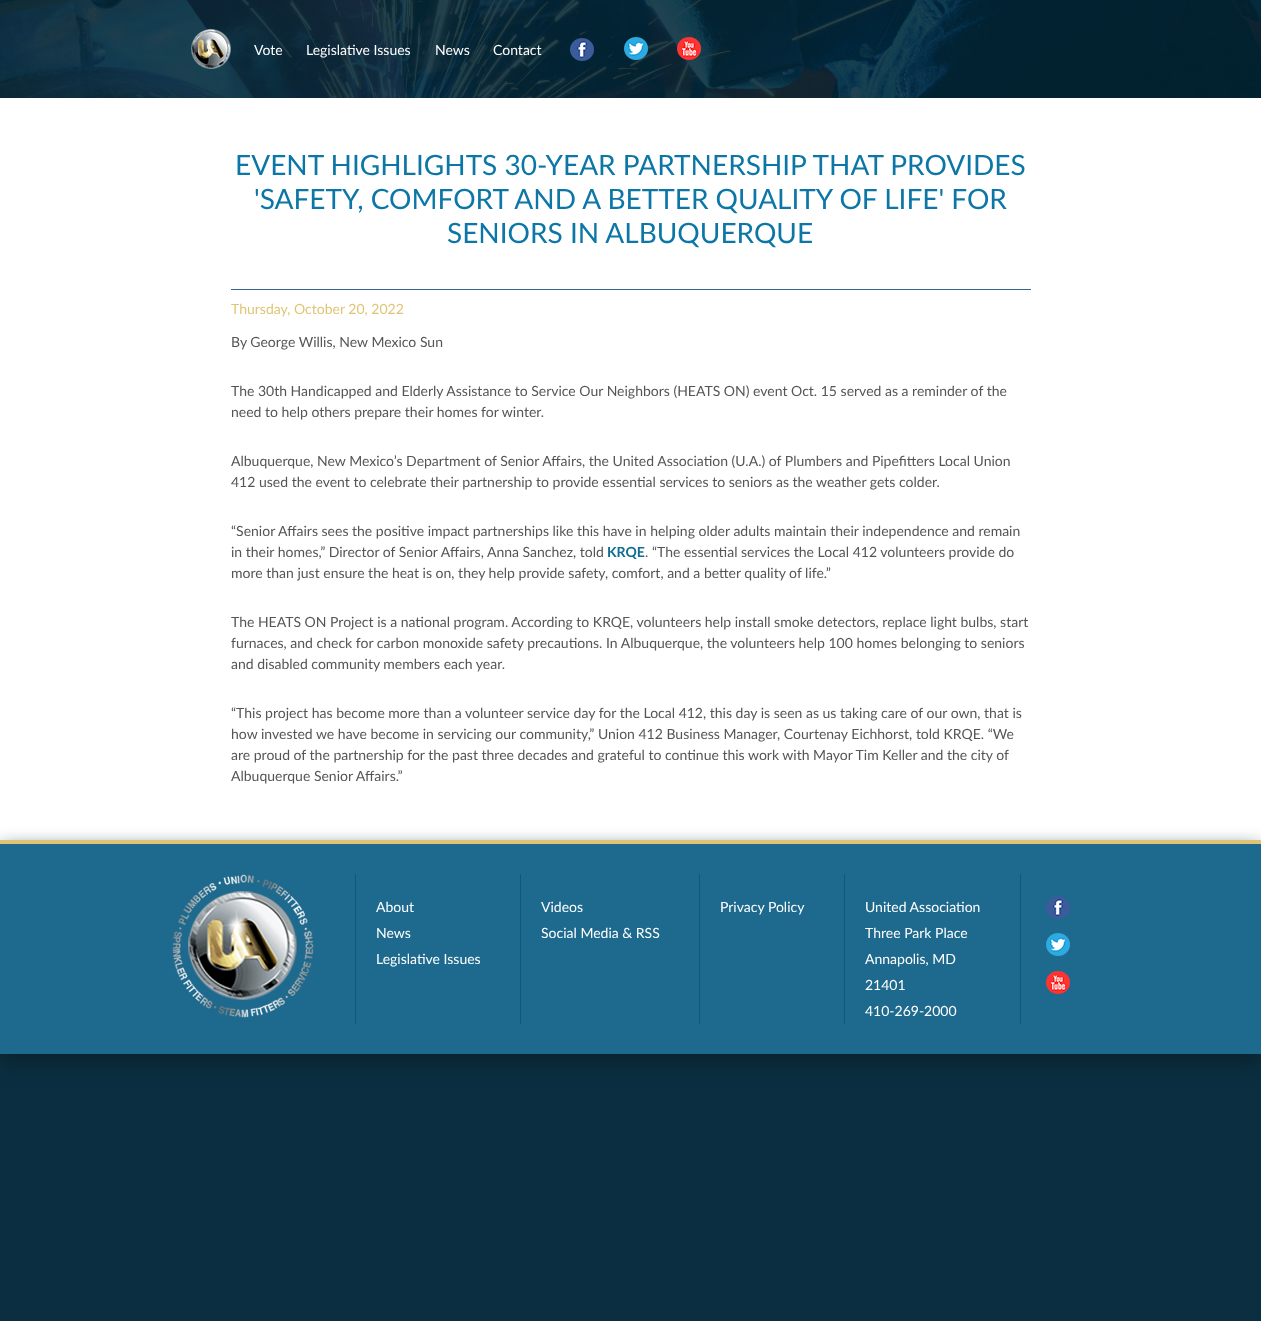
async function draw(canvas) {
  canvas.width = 1261
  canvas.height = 1321
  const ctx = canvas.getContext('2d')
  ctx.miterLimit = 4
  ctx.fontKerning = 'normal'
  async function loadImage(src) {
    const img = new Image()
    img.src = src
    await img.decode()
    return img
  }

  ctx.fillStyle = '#0b2f41'
  ctx.fillRect(0, 0, 1261, 1321)
  ctx.drawImage(await loadImage('image0.png'), 0, 0, 1261, 98)
  ctx.drawImage(await loadImage('image1.png'), 191, 29, 40, 40)
  ctx.font = '14px Lato'
  ctx.fillStyle = '#fff'
  ctx.fillText('Vote', 254, 55)
  ctx.fillText('Legislative Issues', 306, 55)
  ctx.fillText('News', 435, 55)
  ctx.fillText('Contact', 493, 55)
  ctx.drawImage(await loadImage('image2.png'), 570, 38, 24, 23)
  ctx.drawImage(await loadImage('image3.png'), 624, 37, 24, 23)
  ctx.drawImage(await loadImage('image4.png'), 677, 37, 24, 23)
  ctx.fillRect(0, 98, 1261, 742)
  ctx.font = '28px Lato'
  ctx.fillStyle = '#0c77a6'
  ctx.fillText('EVENT HIGHLIGHTS 30-YEAR PARTNERSHIP THAT PROVIDES', 235, 175)
  ctx.fillText('\'SAFETY, COMFORT AND A BETTER QUALITY OF LIFE\' FOR', 254, 209)
  ctx.fillText('SENIORS IN ALBUQUERQUE', 447, 243)
  ctx.fillStyle = '#369'
  ctx.fillRect(231, 289, 800, 1)
  ctx.font = '14px Lato'
  ctx.fillStyle = '#e0c475'
  ctx.fillText('Thursday, October 20, 2022', 231, 314)
  ctx.fillStyle = '#555'
  ctx.fillText('By George Willis, New Mexico Sun', 231, 347)
  ctx.fillText('The 30th Handicapped and Elderly Assistance to Service Our Neighbors (HEATS ON) event Oct. 15 served as a reminder of the', 231, 396)
  ctx.fillText('need to help others prepare their homes for winter.', 231, 417)
  ctx.fillText('Albuquerque, New Mexico’s Department of Senior Affairs, the United Association (U.A.) of Plumbers and Pipefitters Local Union', 231, 466)
  ctx.fillText('412 used the event to celebrate their partnership to provide essential services to seniors as the weather gets colder.', 231, 487)
  ctx.fillText('“Senior Affairs sees the positive impact partnerships like this have in helping older adults maintain their independence and remain', 231, 536)
  ctx.fillText('in their homes,” Director of Senior Affairs, Anna Sanchez, told', 231, 557)
  ctx.font = 'bold 14px Lato'
  ctx.fillStyle = '#0f6f91'
  ctx.fillText('KRQE', 607, 557)
  ctx.font = '14px Lato'
  ctx.fillStyle = '#555'
  ctx.fillText('. “The essential services the Local 412 volunteers provide do', 645, 557)
  ctx.fillText('more than just ensure the heat is on, they help provide safety, comfort, and a better quality of life.”', 231, 578)
  ctx.fillText('The HEATS ON Project is a national program. According to KRQE, volunteers help install smoke detectors, replace light bulbs, start', 231, 627)
  ctx.fillText('furnaces, and check for carbon monoxide safety precautions. In Albuquerque, the volunteers help 100 homes belonging to seniors', 231, 648)
  ctx.fillText('and disabled community members each year.', 231, 669)
  ctx.fillText('“This project has become more than a volunteer service day for the Local 412, this day is seen as us taking care of our own, that is', 231, 718)
  ctx.fillText('how invested we have become in servicing our community,” Union 412 Business Manager, Courtenay Eichhorst, told KRQE. “We', 231, 739)
  ctx.fillText('are proud of the partnership for the past three decades and grateful to continue this work with Mayor Tim Keller and the city of', 231, 760)
  ctx.fillText('Albuquerque Senior Affairs.”', 231, 781)
  ctx.fillStyle = '#09222d'
  ctx.filter = 'blur(10px)'
  ctx.beginPath()
  ctx.rect(0, 850, 1261, 214)
  ctx.fill()
  ctx.filter = 'none'
  ctx.fillStyle = '#1e6a8e'
  ctx.fillRect(0, 844, 1261, 210)
  ctx.fillStyle = '#e0c475'
  ctx.fillRect(0, 840, 1261, 4)
  ctx.drawImage(await loadImage('image5.png'), 172, 874, 142, 144)
  ctx.fillStyle = '#0c597e'
  ctx.fillRect(355, 874, 1, 150)
  ctx.fillStyle = '#fff'
  ctx.fillText('About', 376, 912)
  ctx.fillText('News', 376, 938)
  ctx.fillText('Legislative Issues', 376, 964)
  ctx.fillStyle = '#0c597e'
  ctx.fillRect(520, 874, 1, 150)
  ctx.fillStyle = '#fff'
  ctx.fillText('Videos', 541, 912)
  ctx.fillText('Social Media & RSS', 541, 938)
  ctx.fillStyle = '#0c597e'
  ctx.fillRect(699, 874, 1, 150)
  ctx.fillStyle = '#fff'
  ctx.fillText('Privacy Policy', 720, 912)
  ctx.fillStyle = '#0c597e'
  ctx.fillRect(844, 874, 1, 150)
  ctx.fillStyle = '#fff'
  ctx.fillText('United Association', 865, 912)
  ctx.fillText('Three Park Place', 865, 938)
  ctx.fillText('Annapolis, MD', 865, 964)
  ctx.fillText('21401', 865, 990)
  ctx.fillText('410-269-2000', 865, 1016)
  ctx.fillStyle = '#0c597e'
  ctx.fillRect(1020, 874, 1, 150)
  ctx.drawImage(await loadImage('image6.png'), 1046, 896, 24, 23)
  ctx.drawImage(await loadImage('image7.png'), 1046, 933, 24, 23)
  ctx.drawImage(await loadImage('image8.png'), 1046, 971, 24, 23)
}

draw(document.querySelector('canvas'))
